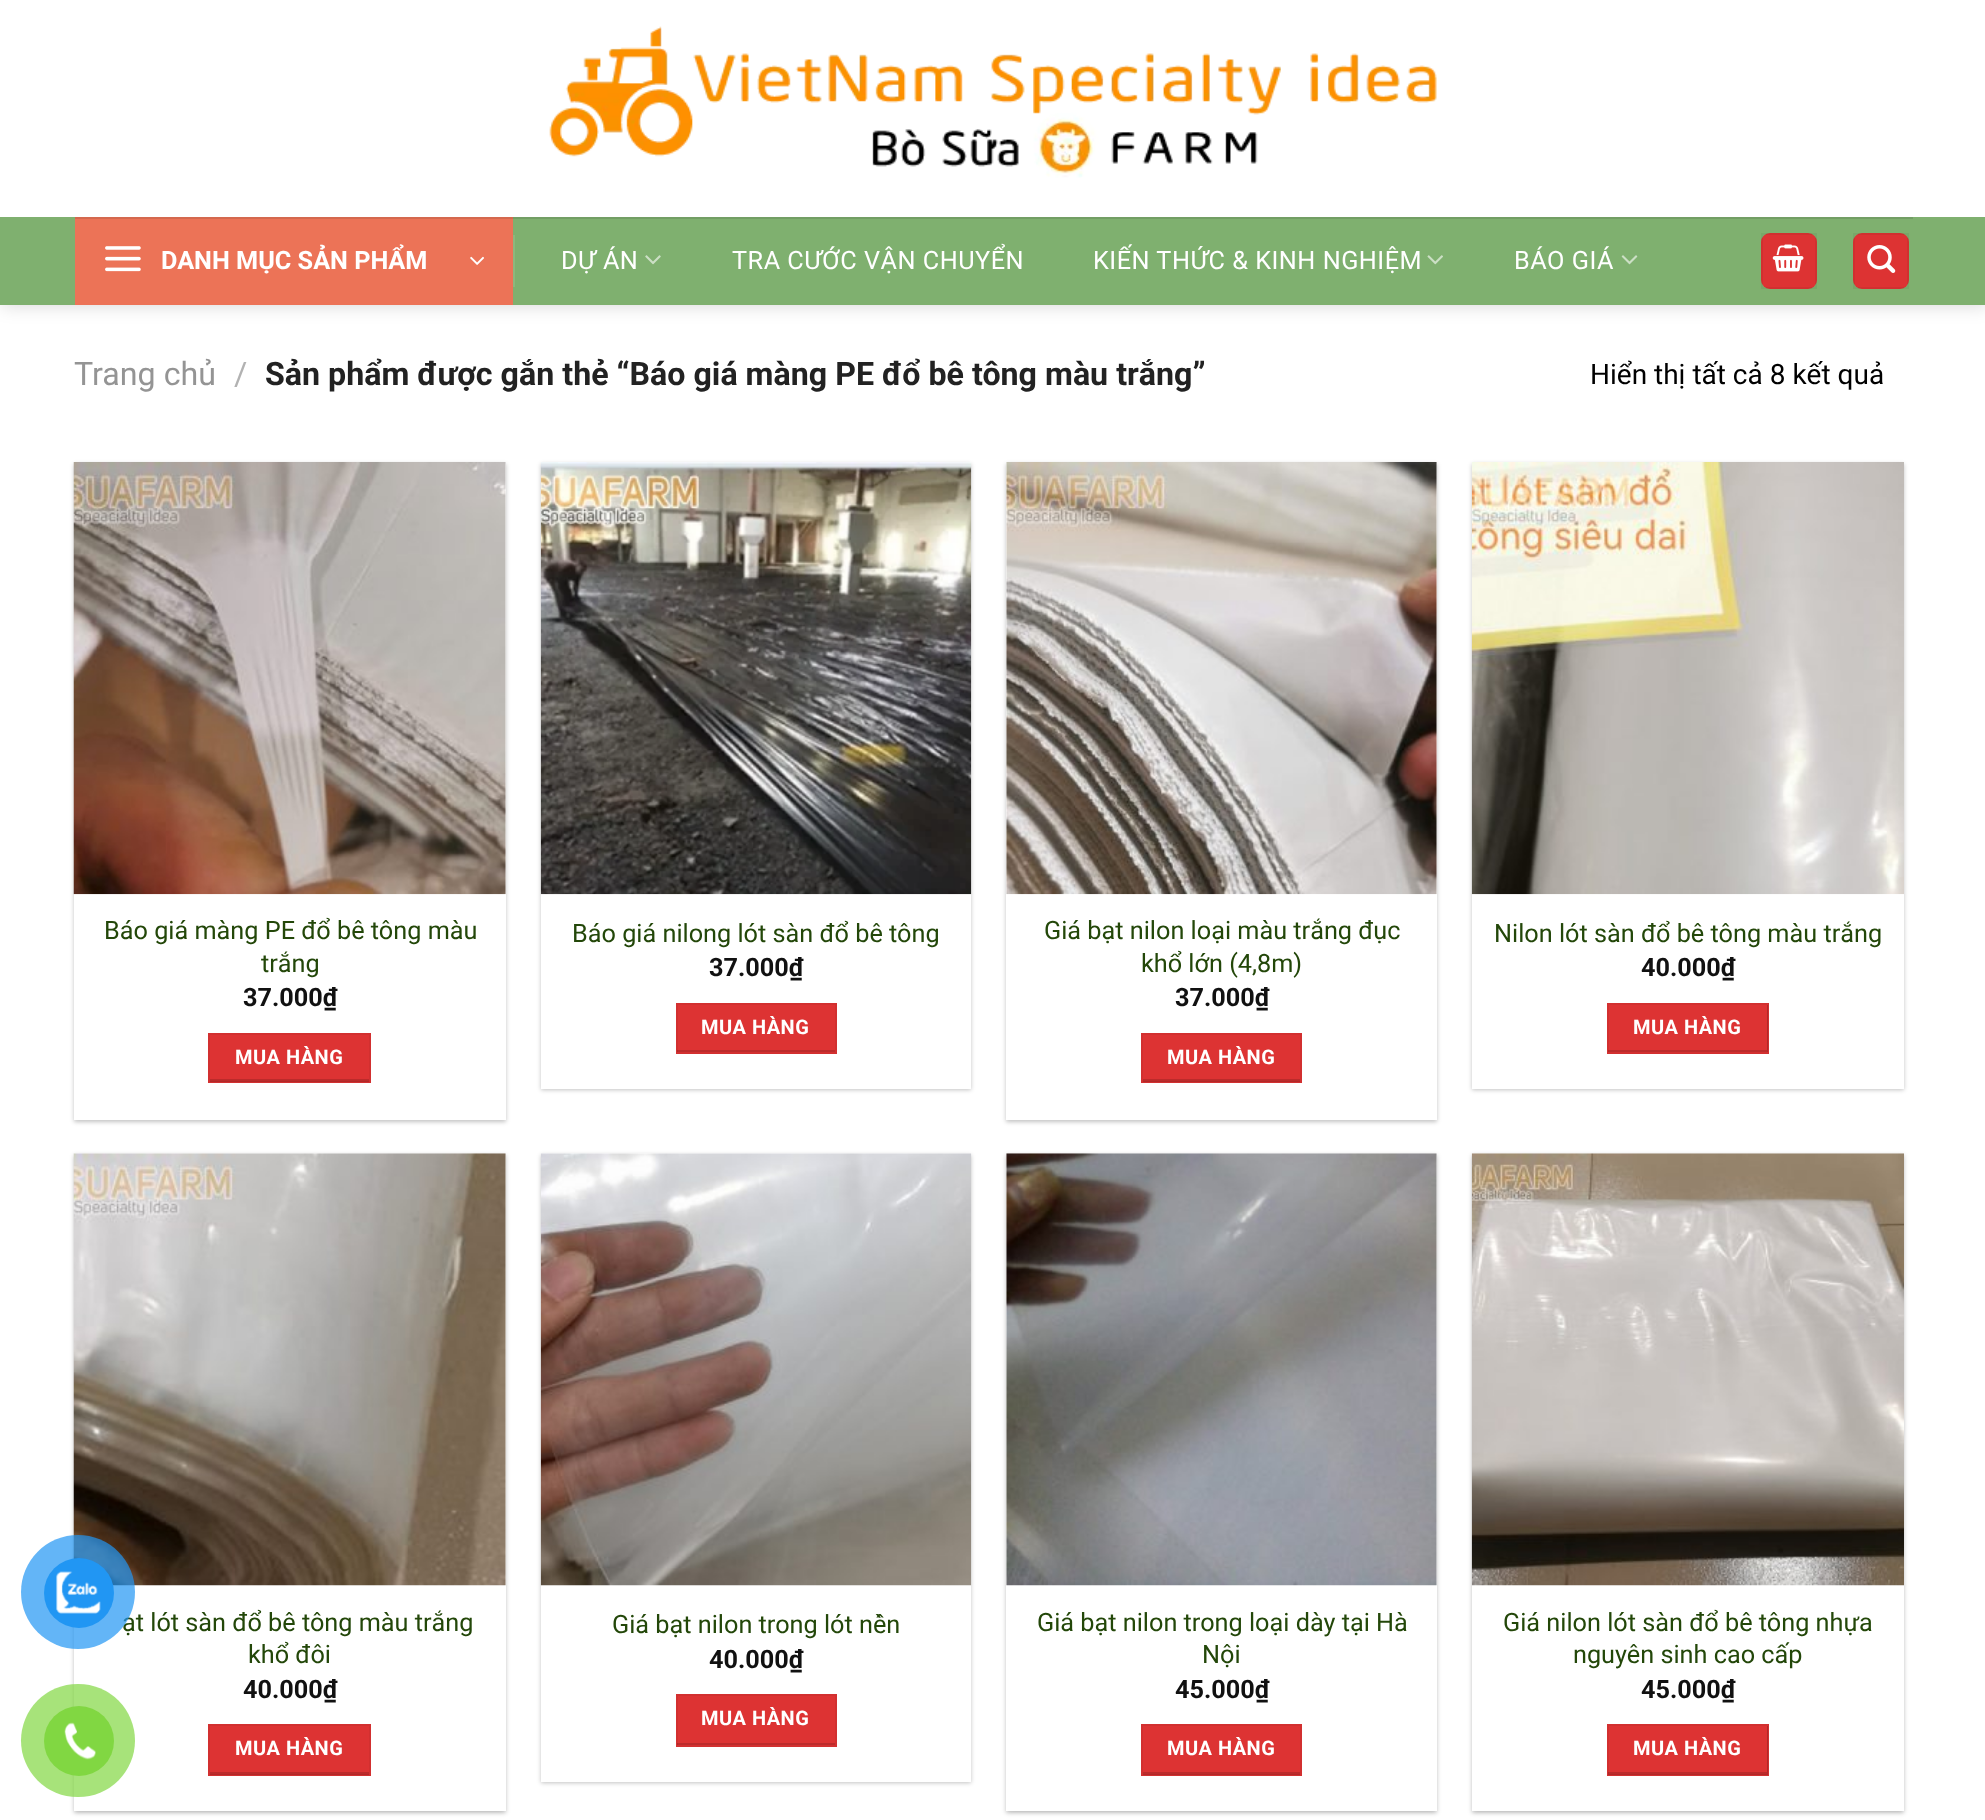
async function draw(canvas) {
  canvas.width = 1985
  canvas.height = 1820
  const ctx = canvas.getContext('2d')
  ctx.miterLimit = 4
  ctx.fontKerning = 'normal'
  async function loadImage(src) {
    const img = new Image()
    img.src = src
    await img.decode()
    return img
  }

  ctx.fillStyle = '#fff'
  ctx.fillRect(0, 0, 1985, 1820)
  ctx.fillStyle = '#00000026'
  ctx.filter = 'blur(9px)'
  ctx.beginPath()
  ctx.rect(2, 2, 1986, 304)
  ctx.fill()
  ctx.filter = 'none'
  ctx.fillStyle = '#fff'
  ctx.fillRect(0, 0, 1985, 217)
  ctx.drawImage(await loadImage('image0.png'), 549, 26, 888, 152)
  ctx.fillStyle = '#7fb06f'
  ctx.fillRect(0, 217, 1985, 88)
  ctx.fillStyle = '#729e64'
  ctx.fillRect(513, 217, 1400, 2)
  ctx.fillStyle = '#ec7357'
  ctx.fillRect(75, 219, 438, 86)
  ctx.fillStyle = '#d4684e'
  ctx.fillRect(75, 217, 438, 2)
  ctx.drawImage(await loadImage('image1.png'), 105, 246, 36, 26)
  ctx.font = 'bold 25.25px Roboto'
  ctx.fillStyle = '#fff'
  ctx.fillText('DANH MỤC SẢN PHẨM', 161, 269)
  ctx.drawImage(await loadImage('image2.png'), 470, 256, 14, 9)
  ctx.fillStyle = '#8cb87d'
  ctx.fillRect(513, 235, 2, 52)
  ctx.letterSpacing = '0.5px'
  ctx.font = '25.25px Roboto'
  ctx.fillStyle = '#fff'
  ctx.fillText('DỰ ÁN', 561, 269)
  ctx.drawImage(await loadImage('image3.png'), 645, 255, 16, 10)
  ctx.fillText('TRA CƯỚC VẬN CHUYỂN', 732, 269)
  ctx.fillText('KIẾN THỨC & KINH NGHIỆM', 1093, 269)
  ctx.drawImage(await loadImage('image4.png'), 1427, 255, 16, 10)
  ctx.fillText('BÁO GIÁ', 1514, 269)
  ctx.drawImage(await loadImage('image5.png'), 1621, 255, 17, 10)
  ctx.fillStyle = '#d33'
  ctx.beginPath()
  ctx.roundRect(1761, 233, 56, 56, 9)
  ctx.fill()
  ctx.strokeStyle = '#0000000d'
  ctx.lineWidth = 2
  ctx.strokeRect(1762, 234, 54, 54)
  ctx.drawImage(await loadImage('image6.png'), 1772, 244, 32, 28)
  ctx.beginPath()
  ctx.roundRect(1853, 233, 56, 56, 9)
  ctx.fill()
  ctx.strokeRect(1854, 234, 54, 54)
  ctx.drawImage(await loadImage('image7.png'), 1867, 245, 29, 28)
  ctx.letterSpacing = '0px'
  ctx.font = '32.2px Roboto'
  ctx.fillStyle = '#949494'
  ctx.fillText('Trang chủ', 74, 385)
  ctx.fillStyle = '#b2b2b2'
  ctx.fillText('/', 234, 385)
  ctx.font = 'bold 32.2px Roboto'
  ctx.fillStyle = '#222'
  ctx.fillText('Sản phẩm được gắn thẻ “Báo giá màng PE đổ bê tông màu trắng”', 265, 385)
  ctx.font = '28px Roboto'
  ctx.fillStyle = '#000'
  ctx.fillText('Hiển thị tất cả 8 kết quả', 1590, 384)
  ctx.fillStyle = '#0000003d'
  ctx.filter = 'blur(2px)'
  ctx.beginPath()
  ctx.rect(74, 464, 432, 658)
  ctx.fill()
  ctx.filter = 'none'
  ctx.fillStyle = '#fff'
  ctx.fillRect(74, 462, 432, 658)
  ctx.drawImage(await loadImage('image8.png'), 73, 462, 433, 433)
  ctx.font = '25.25px Roboto'
  ctx.fillStyle = '#234709'
  ctx.fillText('Báo giá màng PE đổ bê tông màu', 104, 939)
  ctx.fillText('trắng', 261, 972)
  ctx.font = 'bold 25.25px Roboto'
  ctx.fillStyle = '#111'
  ctx.fillText('37.000₫', 243, 1006)
  ctx.fillStyle = '#d33'
  ctx.beginPath()
  ctx.rect(209, 1034, 161, 48)
  ctx.fill()
  ctx.strokeStyle = '#d23030'
  ctx.stroke()
  ctx.letterSpacing = '0.5px'
  ctx.font = 'bold 20px Roboto'
  ctx.fillStyle = '#fff'
  ctx.fillText('MUA HÀNG', 235, 1064)
  ctx.save()
  ctx.beginPath()
  ctx.rect(210, 1034, 159, 48)
  ctx.clip()
  ctx.fillStyle = '#00000026'
  ctx.beginPath()
  ctx.moveTo(37, 861)
  ctx.lineTo(542, 861)
  ctx.lineTo(542, 1255)
  ctx.lineTo(37, 1255)
  ctx.closePath()
  ctx.moveTo(210, 1032)
  ctx.lineTo(369, 1032)
  ctx.lineTo(369, 1079)
  ctx.lineTo(210, 1079)
  ctx.closePath()
  ctx.fill('evenodd')
  ctx.restore()
  ctx.fillStyle = '#0000003d'
  ctx.filter = 'blur(2px)'
  ctx.beginPath()
  ctx.rect(541, 464, 430, 626)
  ctx.fill()
  ctx.filter = 'none'
  ctx.fillStyle = '#fff'
  ctx.fillRect(541, 894, 430, 195)
  ctx.drawImage(await loadImage('image9.png'), 540, 462, 432, 433)
  ctx.letterSpacing = '0px'
  ctx.font = '25.25px Roboto'
  ctx.fillStyle = '#234709'
  ctx.fillText('Báo giá nilong lót sàn đổ bê tông', 572, 942)
  ctx.font = 'bold 25.25px Roboto'
  ctx.fillStyle = '#111'
  ctx.fillText('37.000₫', 709, 976)
  ctx.fillStyle = '#d33'
  ctx.beginPath()
  ctx.rect(677, 1004, 159, 49)
  ctx.fill()
  ctx.stroke()
  ctx.letterSpacing = '0.5px'
  ctx.font = 'bold 20px Roboto'
  ctx.fillStyle = '#fff'
  ctx.fillText('MUA HÀNG', 701, 1034)
  ctx.save()
  ctx.beginPath()
  ctx.rect(677, 1005, 158, 47)
  ctx.clip()
  ctx.fillStyle = '#00000026'
  ctx.beginPath()
  ctx.moveTo(504, 831)
  ctx.lineTo(1008, 831)
  ctx.lineTo(1008, 1225)
  ctx.lineTo(504, 1225)
  ctx.closePath()
  ctx.moveTo(677, 1002)
  ctx.lineTo(835, 1002)
  ctx.lineTo(835, 1050)
  ctx.lineTo(677, 1050)
  ctx.closePath()
  ctx.fill('evenodd')
  ctx.restore()
  ctx.fillStyle = '#0000003d'
  ctx.filter = 'blur(2px)'
  ctx.beginPath()
  ctx.rect(1006, 464, 431, 658)
  ctx.fill()
  ctx.filter = 'none'
  ctx.fillStyle = '#fff'
  ctx.fillRect(1006, 462, 431, 658)
  ctx.drawImage(await loadImage('image10.png'), 1006, 462, 431, 433)
  ctx.letterSpacing = '0px'
  ctx.font = '25.25px Roboto'
  ctx.fillStyle = '#234709'
  ctx.fillText('Giá bạt nilon loại màu trắng đục', 1044, 939)
  ctx.fillText('khổ lớn (4,8m)', 1141, 972)
  ctx.font = 'bold 25.25px Roboto'
  ctx.fillStyle = '#111'
  ctx.fillText('37.000₫', 1175, 1006)
  ctx.fillStyle = '#d33'
  ctx.beginPath()
  ctx.rect(1142, 1034, 159, 48)
  ctx.fill()
  ctx.stroke()
  ctx.letterSpacing = '0.5px'
  ctx.font = 'bold 20px Roboto'
  ctx.fillStyle = '#fff'
  ctx.fillText('MUA HÀNG', 1167, 1064)
  ctx.save()
  ctx.beginPath()
  ctx.rect(1143, 1034, 157, 48)
  ctx.clip()
  ctx.fillStyle = '#00000026'
  ctx.beginPath()
  ctx.moveTo(970, 861)
  ctx.lineTo(1474, 861)
  ctx.lineTo(1474, 1255)
  ctx.lineTo(970, 1255)
  ctx.closePath()
  ctx.moveTo(1143, 1032)
  ctx.lineTo(1300, 1032)
  ctx.lineTo(1300, 1079)
  ctx.lineTo(1143, 1079)
  ctx.closePath()
  ctx.fill('evenodd')
  ctx.restore()
  ctx.fillStyle = '#0000003d'
  ctx.filter = 'blur(2px)'
  ctx.beginPath()
  ctx.rect(1472, 464, 432, 626)
  ctx.fill()
  ctx.filter = 'none'
  ctx.fillStyle = '#fff'
  ctx.fillRect(1472, 894, 432, 195)
  ctx.drawImage(await loadImage('image11.png'), 1471, 462, 433, 433)
  ctx.letterSpacing = '0px'
  ctx.font = '25.25px Roboto'
  ctx.fillStyle = '#234709'
  ctx.fillText('Nilon lót sàn đổ bê tông màu trắng', 1494, 942)
  ctx.font = 'bold 25.25px Roboto'
  ctx.fillStyle = '#111'
  ctx.fillText('40.000₫', 1641, 976)
  ctx.fillStyle = '#d33'
  ctx.beginPath()
  ctx.rect(1608, 1004, 160, 49)
  ctx.fill()
  ctx.stroke()
  ctx.letterSpacing = '0.5px'
  ctx.font = 'bold 20px Roboto'
  ctx.fillStyle = '#fff'
  ctx.fillText('MUA HÀNG', 1633, 1034)
  ctx.save()
  ctx.beginPath()
  ctx.rect(1608, 1005, 160, 47)
  ctx.clip()
  ctx.fillStyle = '#00000026'
  ctx.beginPath()
  ctx.moveTo(1435, 831)
  ctx.lineTo(1941, 831)
  ctx.lineTo(1941, 1225)
  ctx.lineTo(1435, 1225)
  ctx.closePath()
  ctx.moveTo(1608, 1002)
  ctx.lineTo(1767, 1002)
  ctx.lineTo(1767, 1050)
  ctx.lineTo(1608, 1050)
  ctx.closePath()
  ctx.fill('evenodd')
  ctx.restore()
  ctx.fillStyle = '#0000003d'
  ctx.filter = 'blur(2px)'
  ctx.beginPath()
  ctx.rect(74, 1155, 432, 658)
  ctx.fill()
  ctx.filter = 'none'
  ctx.fillStyle = '#0000001f'
  ctx.filter = 'blur(2.5px)'
  ctx.beginPath()
  ctx.rect(77, 1159, 425, 651)
  ctx.fill()
  ctx.filter = 'none'
  ctx.fillStyle = '#fff'
  ctx.fillRect(74, 1153, 432, 658)
  ctx.drawImage(await loadImage('image12.png'), 73, 1153, 433, 433)
  ctx.letterSpacing = '0px'
  ctx.font = '25.25px Roboto'
  ctx.fillStyle = '#234709'
  ctx.fillText('ạt lót sàn đổ bê tông màu trắng', 122, 1631)
  ctx.fillText('khổ đôi', 248, 1663)
  ctx.font = 'bold 25.25px Roboto'
  ctx.fillStyle = '#111'
  ctx.fillText('40.000₫', 243, 1698)
  ctx.fillStyle = '#d33'
  ctx.beginPath()
  ctx.rect(209, 1725, 161, 50)
  ctx.fill()
  ctx.stroke()
  ctx.letterSpacing = '0.5px'
  ctx.font = 'bold 20px Roboto'
  ctx.fillStyle = '#fff'
  ctx.fillText('MUA HÀNG', 235, 1755)
  ctx.save()
  ctx.beginPath()
  ctx.rect(210, 1726, 159, 49)
  ctx.clip()
  ctx.fillStyle = '#00000026'
  ctx.beginPath()
  ctx.moveTo(37, 1552)
  ctx.lineTo(542, 1552)
  ctx.lineTo(542, 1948)
  ctx.lineTo(37, 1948)
  ctx.closePath()
  ctx.moveTo(210, 1723)
  ctx.lineTo(369, 1723)
  ctx.lineTo(369, 1772)
  ctx.lineTo(210, 1772)
  ctx.closePath()
  ctx.fill('evenodd')
  ctx.restore()
  ctx.fillStyle = '#0000003d'
  ctx.filter = 'blur(2px)'
  ctx.beginPath()
  ctx.rect(541, 1155, 430, 628)
  ctx.fill()
  ctx.filter = 'none'
  ctx.fillStyle = '#fff'
  ctx.fillRect(541, 1153, 430, 629)
  ctx.drawImage(await loadImage('image13.png'), 540, 1153, 432, 433)
  ctx.letterSpacing = '0px'
  ctx.font = '25.25px Roboto'
  ctx.fillStyle = '#234709'
  ctx.fillText('Giá bạt nilon trong lót nền', 612, 1633)
  ctx.font = 'bold 25.25px Roboto'
  ctx.fillStyle = '#111'
  ctx.fillText('40.000₫', 709, 1668)
  ctx.fillStyle = '#d33'
  ctx.beginPath()
  ctx.rect(677, 1695, 159, 51)
  ctx.fill()
  ctx.stroke()
  ctx.letterSpacing = '0.5px'
  ctx.font = 'bold 20px Roboto'
  ctx.fillStyle = '#fff'
  ctx.fillText('MUA HÀNG', 701, 1725)
  ctx.save()
  ctx.beginPath()
  ctx.rect(677, 1696, 158, 49)
  ctx.clip()
  ctx.fillStyle = '#00000026'
  ctx.beginPath()
  ctx.moveTo(504, 1522)
  ctx.lineTo(1008, 1522)
  ctx.lineTo(1008, 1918)
  ctx.lineTo(504, 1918)
  ctx.closePath()
  ctx.moveTo(677, 1694)
  ctx.lineTo(835, 1694)
  ctx.lineTo(835, 1743)
  ctx.lineTo(677, 1743)
  ctx.closePath()
  ctx.fill('evenodd')
  ctx.restore()
  ctx.fillStyle = '#0000003d'
  ctx.filter = 'blur(2px)'
  ctx.beginPath()
  ctx.rect(1006, 1155, 431, 658)
  ctx.fill()
  ctx.filter = 'none'
  ctx.fillStyle = '#0000001f'
  ctx.filter = 'blur(2.5px)'
  ctx.beginPath()
  ctx.rect(1010, 1159, 423, 651)
  ctx.fill()
  ctx.filter = 'none'
  ctx.fillStyle = '#fff'
  ctx.fillRect(1006, 1153, 431, 658)
  ctx.drawImage(await loadImage('image14.png'), 1006, 1153, 431, 433)
  ctx.letterSpacing = '0px'
  ctx.font = '25.25px Roboto'
  ctx.fillStyle = '#234709'
  ctx.fillText('Giá bạt nilon trong loại dày tại Hà', 1037, 1631)
  ctx.fillText('Nội', 1202, 1663)
  ctx.font = 'bold 25.25px Roboto'
  ctx.fillStyle = '#111'
  ctx.fillText('45.000₫', 1175, 1698)
  ctx.fillStyle = '#d33'
  ctx.beginPath()
  ctx.rect(1142, 1725, 159, 50)
  ctx.fill()
  ctx.stroke()
  ctx.letterSpacing = '0.5px'
  ctx.font = 'bold 20px Roboto'
  ctx.fillStyle = '#fff'
  ctx.fillText('MUA HÀNG', 1167, 1755)
  ctx.save()
  ctx.beginPath()
  ctx.rect(1143, 1726, 157, 49)
  ctx.clip()
  ctx.fillStyle = '#00000026'
  ctx.beginPath()
  ctx.moveTo(970, 1552)
  ctx.lineTo(1474, 1552)
  ctx.lineTo(1474, 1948)
  ctx.lineTo(970, 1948)
  ctx.closePath()
  ctx.moveTo(1143, 1723)
  ctx.lineTo(1300, 1723)
  ctx.lineTo(1300, 1772)
  ctx.lineTo(1143, 1772)
  ctx.closePath()
  ctx.fill('evenodd')
  ctx.restore()
  ctx.fillStyle = '#0000003d'
  ctx.filter = 'blur(2px)'
  ctx.beginPath()
  ctx.rect(1472, 1155, 432, 658)
  ctx.fill()
  ctx.filter = 'none'
  ctx.fillStyle = '#0000001f'
  ctx.filter = 'blur(2.5px)'
  ctx.beginPath()
  ctx.rect(1475, 1159, 426, 651)
  ctx.fill()
  ctx.filter = 'none'
  ctx.fillStyle = '#fff'
  ctx.fillRect(1472, 1153, 432, 658)
  ctx.drawImage(await loadImage('image15.png'), 1471, 1153, 433, 433)
  ctx.letterSpacing = '0px'
  ctx.font = '25.25px Roboto'
  ctx.fillStyle = '#234709'
  ctx.fillText('Giá nilon lót sàn đổ bê tông nhựa', 1503, 1631)
  ctx.fillText('nguyên sinh cao cấp', 1573, 1663)
  ctx.font = 'bold 25.25px Roboto'
  ctx.fillStyle = '#111'
  ctx.fillText('45.000₫', 1641, 1698)
  ctx.fillStyle = '#d33'
  ctx.beginPath()
  ctx.rect(1608, 1725, 160, 50)
  ctx.fill()
  ctx.stroke()
  ctx.letterSpacing = '0.5px'
  ctx.font = 'bold 20px Roboto'
  ctx.fillStyle = '#fff'
  ctx.fillText('MUA HÀNG', 1633, 1755)
  ctx.save()
  ctx.beginPath()
  ctx.rect(1608, 1726, 160, 49)
  ctx.clip()
  ctx.fillStyle = '#00000026'
  ctx.beginPath()
  ctx.moveTo(1435, 1552)
  ctx.lineTo(1941, 1552)
  ctx.lineTo(1941, 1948)
  ctx.lineTo(1435, 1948)
  ctx.closePath()
  ctx.moveTo(1608, 1723)
  ctx.lineTo(1767, 1723)
  ctx.lineTo(1767, 1772)
  ctx.lineTo(1608, 1772)
  ctx.closePath()
  ctx.fill('evenodd')
  ctx.restore()
  ctx.fillStyle = '#2196f3b3'
  ctx.beginPath()
  ctx.arc(78, 1592, 57, 0, 2 * Math.PI)
  ctx.fill()
  ctx.fillStyle = '#2196f3'
  ctx.beginPath()
  ctx.arc(79, 1593, 35, 0, 2 * Math.PI)
  ctx.fill()
  ctx.drawImage(await loadImage('image16.png'), 56, 1571, 45, 43)
  ctx.fillStyle = '#81d742b3'
  ctx.beginPath()
  ctx.roundRect(21, 1684, 114, 113, 56.5)
  ctx.fill()
  ctx.fillStyle = '#81d742'
  ctx.beginPath()
  ctx.arc(79, 1741, 35, 0, 2 * Math.PI)
  ctx.fill()
  ctx.drawImage(await loadImage('image17.png'), 64, 1722, 32, 38)
}

draw(document.querySelector('canvas'))
